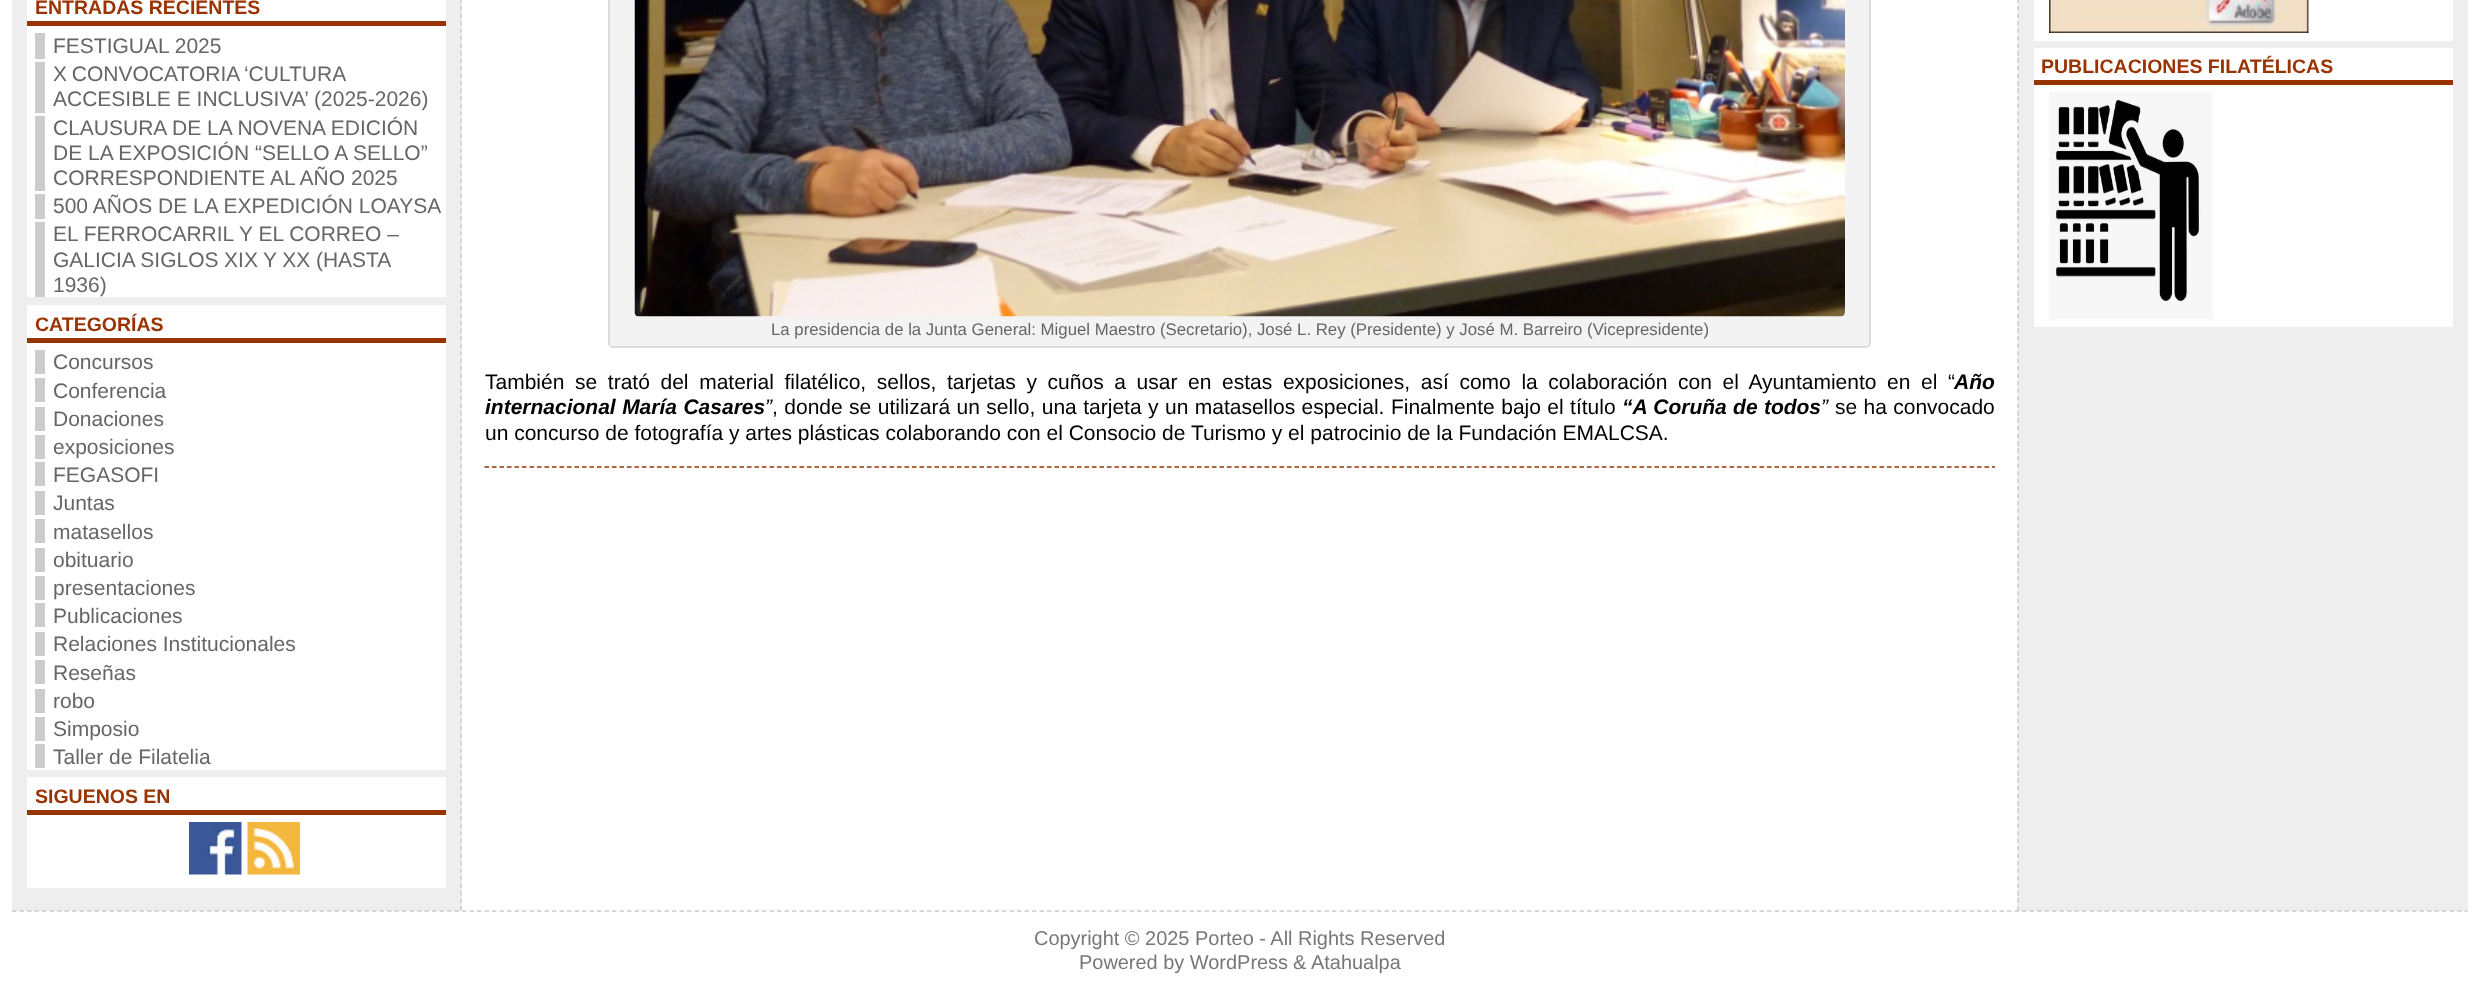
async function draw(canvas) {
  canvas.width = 2479
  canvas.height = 989
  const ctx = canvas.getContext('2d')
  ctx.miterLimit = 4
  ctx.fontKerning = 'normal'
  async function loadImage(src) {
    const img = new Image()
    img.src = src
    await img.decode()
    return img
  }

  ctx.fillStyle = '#fff'
  ctx.fillRect(0, 0, 2479, 989)
  ctx.fillStyle = '#eee'
  ctx.fillRect(12, 0, 450, 911)
  ctx.beginPath()
  ctx.moveTo(461, -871.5)
  ctx.lineTo(461, 910.5)
  ctx.strokeStyle = '#ccc'
  ctx.lineWidth = 1.5
  ctx.setLineDash([4.5, 3])
  ctx.stroke()
  ctx.fillStyle = '#fff'
  ctx.fillRect(27, 0, 419, 297)
  ctx.fillStyle = '#930'
  ctx.fillRect(27, 21, 419, 5)
  ctx.font = 'bold 19.5px Liberation Sans'
  ctx.fillText('ENTRADAS RECIENTES', 35, 14)
  ctx.fillStyle = '#ccc'
  ctx.fillRect(35, 33, 10, 26)
  ctx.font = '21px Liberation Sans'
  ctx.fillStyle = '#666'
  ctx.fillText('FESTIGUAL 2025', 53, 53)
  ctx.fillStyle = '#ccc'
  ctx.fillRect(35, 62, 10, 51)
  ctx.wordSpacing = '-1px'
  ctx.fillStyle = '#666'
  ctx.fillText('X CONVOCATORIA ‘CULTURA', 53, 81)
  ctx.wordSpacing = '0px'
  ctx.fillText('ACCESIBLE E INCLUSIVA’ (2025-2026)', 53, 106)
  ctx.fillStyle = '#ccc'
  ctx.fillRect(35, 116, 10, 75)
  ctx.fillStyle = '#666'
  ctx.fillText('CLAUSURA DE LA NOVENA EDICIÓN', 53, 135)
  ctx.fillText('DE LA EXPOSICIÓN “SELLO A SELLO”', 53, 160)
  ctx.fillText('CORRESPONDIENTE AL AÑO 2025', 53, 185)
  ctx.fillStyle = '#ccc'
  ctx.fillRect(35, 194, 10, 25)
  ctx.fillStyle = '#666'
  ctx.fillText('500 AÑOS DE LA EXPEDICIÓN LOAYSA', 53, 213)
  ctx.fillStyle = '#ccc'
  ctx.fillRect(35, 222, 10, 75)
  ctx.fillStyle = '#666'
  ctx.fillText('EL FERROCARRIL Y EL CORREO –', 53, 241)
  ctx.wordSpacing = '-0.25px'
  ctx.fillText('GALICIA SIGLOS XIX Y XX (HASTA', 53, 267)
  ctx.wordSpacing = '0px'
  ctx.fillText('1936)', 53, 292)
  ctx.fillStyle = '#fff'
  ctx.fillRect(27, 305, 419, 465)
  ctx.fillStyle = '#930'
  ctx.fillRect(27, 338, 419, 5)
  ctx.font = 'bold 19.5px Liberation Sans'
  ctx.fillText('CATEGORÍAS', 35, 331)
  ctx.font = '21px Liberation Sans'
  ctx.fillStyle = '#666'
  ctx.fillText('Concursos', 53, 369)
  ctx.fillStyle = '#ccc'
  ctx.fillRect(35, 350, 10, 24)
  ctx.fillStyle = '#666'
  ctx.fillText('Conferencia', 53, 398)
  ctx.fillStyle = '#ccc'
  ctx.fillRect(35, 378, 10, 24)
  ctx.fillStyle = '#666'
  ctx.fillText('Donaciones', 53, 426)
  ctx.fillStyle = '#ccc'
  ctx.fillRect(35, 407, 10, 24)
  ctx.fillStyle = '#666'
  ctx.fillText('exposiciones', 53, 454)
  ctx.fillStyle = '#ccc'
  ctx.fillRect(35, 435, 10, 24)
  ctx.fillStyle = '#666'
  ctx.fillText('FEGASOFI', 53, 482)
  ctx.fillStyle = '#ccc'
  ctx.fillRect(35, 462, 10, 24)
  ctx.fillStyle = '#666'
  ctx.fillText('Juntas', 53, 510)
  ctx.fillStyle = '#ccc'
  ctx.fillRect(35, 491, 10, 24)
  ctx.fillStyle = '#666'
  ctx.fillText('matasellos', 53, 539)
  ctx.fillStyle = '#ccc'
  ctx.fillRect(35, 519, 10, 24)
  ctx.fillStyle = '#666'
  ctx.fillText('obituario', 53, 567)
  ctx.fillStyle = '#ccc'
  ctx.fillRect(35, 548, 10, 24)
  ctx.fillStyle = '#666'
  ctx.fillText('presentaciones', 53, 595)
  ctx.fillStyle = '#ccc'
  ctx.fillRect(35, 576, 10, 24)
  ctx.fillStyle = '#666'
  ctx.fillText('Publicaciones', 53, 623)
  ctx.fillStyle = '#ccc'
  ctx.fillRect(35, 603, 10, 24)
  ctx.fillStyle = '#666'
  ctx.fillText('Relaciones Institucionales', 53, 651)
  ctx.fillStyle = '#ccc'
  ctx.fillRect(35, 632, 10, 24)
  ctx.fillStyle = '#666'
  ctx.fillText('Reseñas', 53, 680)
  ctx.fillStyle = '#ccc'
  ctx.fillRect(35, 660, 10, 24)
  ctx.fillStyle = '#666'
  ctx.fillText('robo', 53, 708)
  ctx.fillStyle = '#ccc'
  ctx.fillRect(35, 689, 10, 24)
  ctx.fillStyle = '#666'
  ctx.fillText('Simposio', 53, 736)
  ctx.fillStyle = '#ccc'
  ctx.fillRect(35, 717, 10, 24)
  ctx.fillStyle = '#666'
  ctx.fillText('Taller de Filatelia', 53, 764)
  ctx.fillStyle = '#ccc'
  ctx.fillRect(35, 744, 10, 24)
  ctx.fillStyle = '#fff'
  ctx.fillRect(27, 777, 419, 111)
  ctx.fillStyle = '#930'
  ctx.fillRect(27, 810, 419, 5)
  ctx.font = 'bold 19.5px Liberation Sans'
  ctx.fillText('SIGUENOS EN', 35, 803)
  ctx.drawImage(await loadImage('image0.png'), 189, 822, 53, 53)
  ctx.drawImage(await loadImage('image1.png'), 247, 822, 53, 53)
  ctx.fillStyle = '#eee'
  ctx.fillRect(2018, 0, 450, 911)
  ctx.beginPath()
  ctx.moveTo(2018, -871.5)
  ctx.lineTo(2018, 910.5)
  ctx.stroke()
  ctx.fillStyle = '#fff'
  ctx.fillRect(2034, 0, 419, 41)
  ctx.drawImage(await loadImage('image2.png'), 2049, 0, 260, 33)
  ctx.fillRect(2034, 48, 419, 279)
  ctx.fillStyle = '#930'
  ctx.fillRect(2034, 80, 419, 5)
  ctx.fillText('PUBLICACIONES FILATÉLICAS', 2041, 73)
  ctx.drawImage(await loadImage('image3.png'), 2049, 91, 164, 229)
  ctx.beginPath()
  ctx.moveTo(484.5, 467)
  ctx.lineTo(1995, 467)
  ctx.strokeStyle = '#930'
  ctx.stroke()
  ctx.fillStyle = '#f3f3f3'
  ctx.beginPath()
  ctx.roundRect(609, -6, 1261, 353, 4)
  ctx.fill()
  ctx.strokeStyle = '#ddd'
  ctx.lineWidth = 2
  ctx.setLineDash([])
  ctx.stroke()
  ctx.drawImage(await loadImage('image4.png'), 634, 0, 1211, 317)
  ctx.font = '16.8px Liberation Sans'
  ctx.fillStyle = '#666'
  ctx.fillText('La presidencia de la Junta General: Miguel Maestro (Secretario), José L. Rey (Presidente) y José M. Barreiro (Vicepresidente)', 771, 335)
  ctx.wordSpacing = '4.8px'
  ctx.font = '21px Liberation Sans'
  ctx.fillStyle = '#000'
  ctx.fillText('También se trató del material filatélico, sellos, tarjetas y cuños a usar en estas exposiciones, así como la colaboración con el Ayuntamiento en el “', 485, 389)
  ctx.wordSpacing = '0px'
  ctx.font = 'italic bold 21px Liberation Sans'
  ctx.fillText('Año', 1954, 389)
  ctx.wordSpacing = '0.6px'
  ctx.fillText('internacional María Casares', 485, 414)
  ctx.wordSpacing = '0px'
  ctx.font = 'italic 21px Liberation Sans'
  ctx.fillText('”', 765, 414)
  ctx.wordSpacing = '0.6px'
  ctx.font = '21px Liberation Sans'
  ctx.fillText(', donde se utilizará un sello, una tarjeta y un matasellos especial. Finalmente bajo el título', 772, 414)
  ctx.wordSpacing = '0.5px'
  ctx.font = 'italic bold 21px Liberation Sans'
  ctx.fillText('“A Coruña de todos', 1622, 414)
  ctx.wordSpacing = '0px'
  ctx.font = 'italic 21px Liberation Sans'
  ctx.fillText('”', 1821, 414)
  ctx.wordSpacing = '0.5px'
  ctx.font = '21px Liberation Sans'
  ctx.fillText('se ha convocado', 1835, 414)
  ctx.wordSpacing = '0px'
  ctx.fillText('un concurso de fotografía y artes plásticas colaborando con el Consocio de Turismo y el patrocinio de la Fundación EMALCSA.', 485, 440)
  ctx.beginPath()
  ctx.moveTo(12, 911)
  ctx.lineTo(2467.5, 911)
  ctx.strokeStyle = '#ccc'
  ctx.lineWidth = 1.5
  ctx.setLineDash([4.5, 3])
  ctx.stroke()
  ctx.font = '19.95px Liberation Sans'
  ctx.fillStyle = '#777'
  ctx.fillText('Copyright © 2025 Porteo - All Rights Reserved', 1034, 945)
  ctx.fillText('Powered by WordPress', 1079, 969)
  ctx.fillText('&', 1293, 969)
  ctx.fillText('Atahualpa', 1311, 969)
}

draw(document.querySelector('canvas'))
